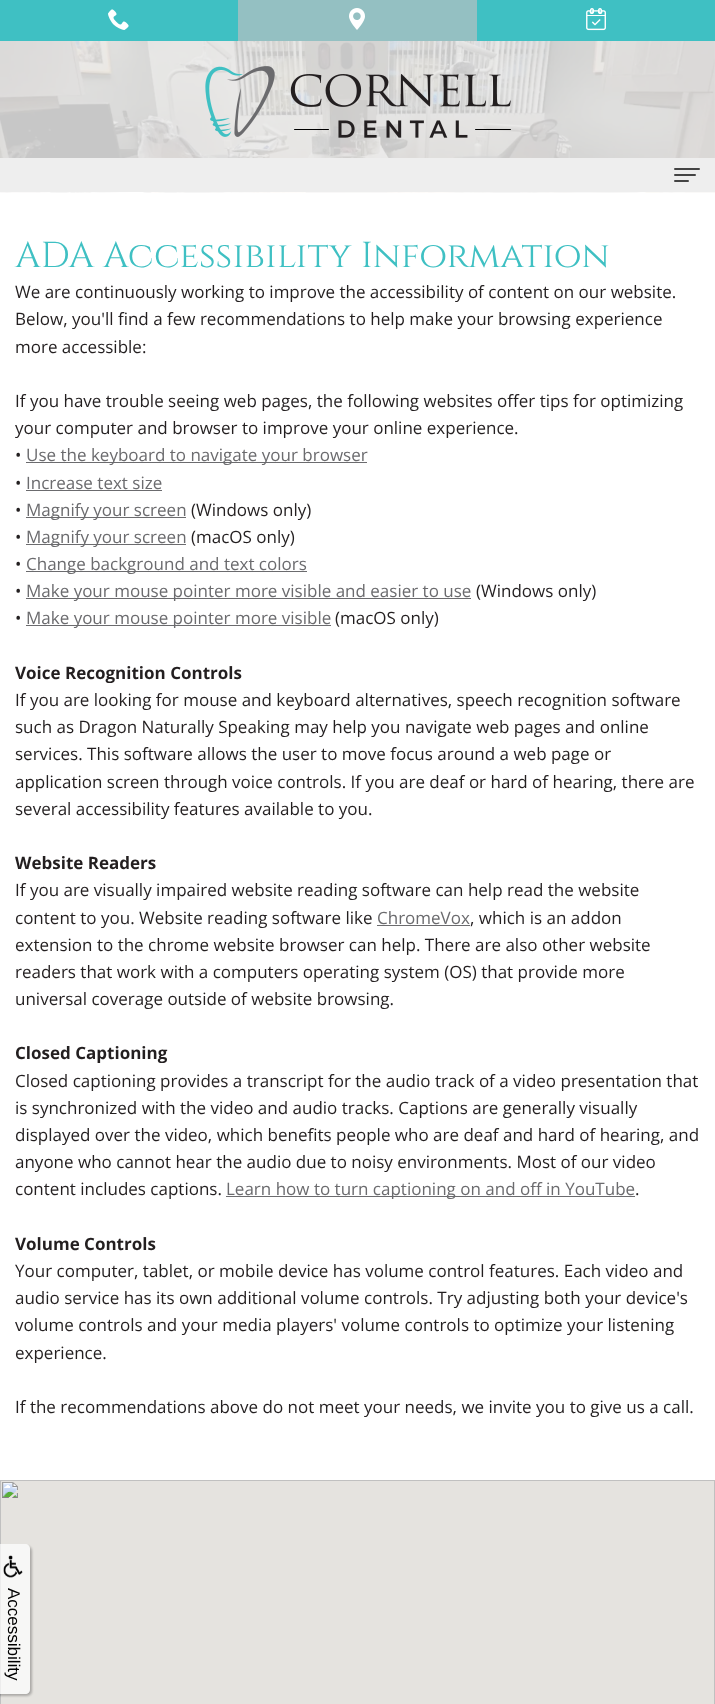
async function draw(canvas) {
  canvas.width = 715
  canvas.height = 1704
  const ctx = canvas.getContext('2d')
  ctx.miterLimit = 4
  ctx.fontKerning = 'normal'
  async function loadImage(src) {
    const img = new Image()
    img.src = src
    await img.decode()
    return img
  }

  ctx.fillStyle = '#fff'
  ctx.fillRect(0, 0, 715, 1704)
  ctx.drawImage(await loadImage('image0.png'), 0, 41, 715, 152)
  ctx.fillStyle = '#3fc0c3'
  ctx.fillRect(0, 0, 238, 41)
  ctx.drawImage(await loadImage('image1.png'), 108, 9, 21, 21)
  ctx.fillStyle = '#94c0c2'
  ctx.fillRect(238, 0, 239, 41)
  ctx.drawImage(await loadImage('image2.png'), 349, 8, 16, 22)
  ctx.fillStyle = '#3fc0c3'
  ctx.fillRect(477, 0, 238, 41)
  ctx.drawImage(await loadImage('image3.png'), 586, 8, 20, 23)
  ctx.drawImage(await loadImage('image4.png'), 205, 66, 306, 72)
  ctx.fillStyle = '#eee'
  ctx.fillRect(0, 158, 715, 34)
  ctx.fillStyle = '#444'
  ctx.beginPath()
  ctx.roundRect(674, 168, 26, 2, 1)
  ctx.fill()
  ctx.beginPath()
  ctx.roundRect(674, 174, 22, 2, 1)
  ctx.fill()
  ctx.beginPath()
  ctx.roundRect(674, 180, 15, 2, 1)
  ctx.fill()
  ctx.font = '36px Cinzel'
  ctx.fillStyle = '#3fc0c3'
  ctx.fillText('ADA Accessibility Information', 15, 267)
  ctx.font = '17px Open Sans'
  ctx.fillStyle = '#231f20'
  ctx.fillText('We are continuously working to improve the accessibility of content on our website.', 15, 298)
  ctx.fillText('Below, you\'ll find a few recommendations to help make your browsing experience', 15, 325)
  ctx.fillText('more accessible:', 15, 353)
  ctx.fillText('If you have trouble seeing web pages, the following websites offer tips for optimizing', 15, 407)
  ctx.fillText('your computer and browser to improve your online experience.', 15, 434)
  ctx.fillText('•', 15, 461)
  ctx.fillStyle = '#6b6b6e'
  ctx.fillRect(26, 462, 341, 1)
  ctx.fillText('Use the keyboard to navigate your browser', 26, 461)
  ctx.fillStyle = '#231f20'
  ctx.fillText('•', 15, 489)
  ctx.fillStyle = '#6b6b6e'
  ctx.fillText('Increase text size', 26, 489)
  ctx.fillRect(26, 490, 136, 1)
  ctx.fillStyle = '#231f20'
  ctx.fillText('•', 15, 516)
  ctx.fillStyle = '#6b6b6e'
  ctx.fillRect(26, 517, 160, 1)
  ctx.fillText('Magnify your screen', 26, 516)
  ctx.fillStyle = '#231f20'
  ctx.fillText('(Windows only)', 191, 516)
  ctx.fillText('•', 15, 543)
  ctx.fillStyle = '#6b6b6e'
  ctx.fillRect(26, 544, 160, 1)
  ctx.fillText('Magnify your screen', 26, 543)
  ctx.fillStyle = '#231f20'
  ctx.fillText('(macOS only)', 191, 543)
  ctx.fillText('•', 15, 570)
  ctx.fillStyle = '#6b6b6e'
  ctx.fillRect(26, 571, 281, 1)
  ctx.fillText('Change background and text colors', 26, 570)
  ctx.fillStyle = '#231f20'
  ctx.fillText('•', 15, 597)
  ctx.fillStyle = '#6b6b6e'
  ctx.fillRect(26, 598, 445, 1)
  ctx.fillText('Make your mouse pointer more visible and easier to use', 26, 597)
  ctx.fillStyle = '#231f20'
  ctx.fillText('(Windows only)', 476, 597)
  ctx.fillText('•', 15, 624)
  ctx.fillStyle = '#6b6b6e'
  ctx.fillRect(26, 625, 305, 1)
  ctx.fillText('Make your mouse pointer more visible', 26, 624)
  ctx.fillStyle = '#231f20'
  ctx.fillText('(macOS only)', 335, 624)
  ctx.font = 'bold 17px Open Sans'
  ctx.fillText('Voice Recognition Controls', 15, 679)
  ctx.font = '17px Open Sans'
  ctx.fillText('If you are looking for mouse and keyboard alternatives, speech recognition software', 15, 706)
  ctx.fillText('such as Dragon Naturally Speaking may help you navigate web pages and online', 15, 733)
  ctx.fillText('services. This software allows the user to move focus around a web page or', 15, 760)
  ctx.fillText('application screen through voice controls. If you are deaf or hard of hearing, there are', 15, 788)
  ctx.fillText('several accessibility features available to you.', 15, 815)
  ctx.font = 'bold 17px Open Sans'
  ctx.fillText('Website Readers', 15, 869)
  ctx.font = '17px Open Sans'
  ctx.fillText('If you are visually impaired website reading software can help read the website', 15, 896)
  ctx.fillText('content to you. Website reading software like', 15, 924)
  ctx.fillStyle = '#6b6b6e'
  ctx.fillText('ChromeVox', 377, 924)
  ctx.fillRect(377, 925, 93, 1)
  ctx.fillStyle = '#231f20'
  ctx.fillText(', which is an addon', 470, 924)
  ctx.fillText('extension to the chrome website browser can help. There are also other website', 15, 951)
  ctx.fillText('readers that work with a computers operating system (OS) that provide more', 15, 978)
  ctx.fillText('universal coverage outside of website browsing.', 15, 1005)
  ctx.font = 'bold 17px Open Sans'
  ctx.fillText('Closed Captioning', 15, 1059)
  ctx.font = '17px Open Sans'
  ctx.fillText('Closed captioning provides a transcript for the audio track of a video presentation that', 15, 1087)
  ctx.fillText('is synchronized with the video and audio tracks. Captions are generally visually', 15, 1114)
  ctx.fillText('displayed over the video, which benefits people who are deaf and hard of hearing, and', 15, 1141)
  ctx.fillText('anyone who cannot hear the audio due to noisy environments. Most of our video', 15, 1168)
  ctx.fillText('content includes captions.', 15, 1195)
  ctx.fillStyle = '#6b6b6e'
  ctx.fillRect(226, 1196, 409, 1)
  ctx.fillText('Learn how to turn captioning on and off in YouTube', 226, 1195)
  ctx.fillStyle = '#231f20'
  ctx.fillText('.', 635, 1195)
  ctx.font = 'bold 17px Open Sans'
  ctx.fillText('Volume Controls', 15, 1250)
  ctx.font = '17px Open Sans'
  ctx.fillText('Your computer, tablet, or mobile device has volume control features. Each video and', 15, 1277)
  ctx.fillText('audio service has its own additional volume controls. Try adjusting both your device\'s', 15, 1304)
  ctx.fillText('volume controls and your media players\' volume controls to optimize your listening', 15, 1331)
  ctx.fillText('experience.', 15, 1359)
  ctx.fillText('If the recommendations above do not meet your needs, we invite you to give us a call.', 15, 1413)
  ctx.drawImage(await loadImage('image5.png'), 0, 1480, 715, 224)
  ctx.save()
  ctx.beginPath()
  ctx.moveTo(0, 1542)
  ctx.lineTo(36, 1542)
  ctx.lineTo(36, 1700)
  ctx.lineTo(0, 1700)
  ctx.closePath()
  ctx.moveTo(-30, 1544)
  ctx.lineTo(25, 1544)
  ctx.bezierCurveTo(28, 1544, 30, 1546, 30, 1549)
  ctx.lineTo(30, 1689)
  ctx.bezierCurveTo(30, 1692, 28, 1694, 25, 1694)
  ctx.lineTo(-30, 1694)
  ctx.closePath()
  ctx.clip('evenodd')
  ctx.fillStyle = '#00000040'
  ctx.filter = 'blur(1px)'
  ctx.beginPath()
  ctx.roundRect(-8, 1546, 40, 150, 5)
  ctx.fill()
  ctx.filter = 'none'
  ctx.restore()
  ctx.fillStyle = '#ffffffb3'
  ctx.beginPath()
  ctx.moveTo(-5, 1544)
  ctx.lineTo(25, 1544)
  ctx.bezierCurveTo(28, 1544, 30, 1546, 30, 1549)
  ctx.lineTo(30, 1689)
  ctx.bezierCurveTo(30, 1692, 28, 1694, 25, 1694)
  ctx.lineTo(-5, 1694)
  ctx.closePath()
  ctx.fill()
  ctx.drawImage(await loadImage('image6.png'), 3, 1555, 20, 23)
  ctx.font = '17px Liberation Sans'
  ctx.fillStyle = '#000'
  ctx.save()
  ctx.translate(8, 1588)
  ctx.rotate(90 * Math.PI / 180)
  ctx.fillText('Accessibility', 0, 0)
  ctx.restore()
}

draw(document.querySelector('canvas'))
